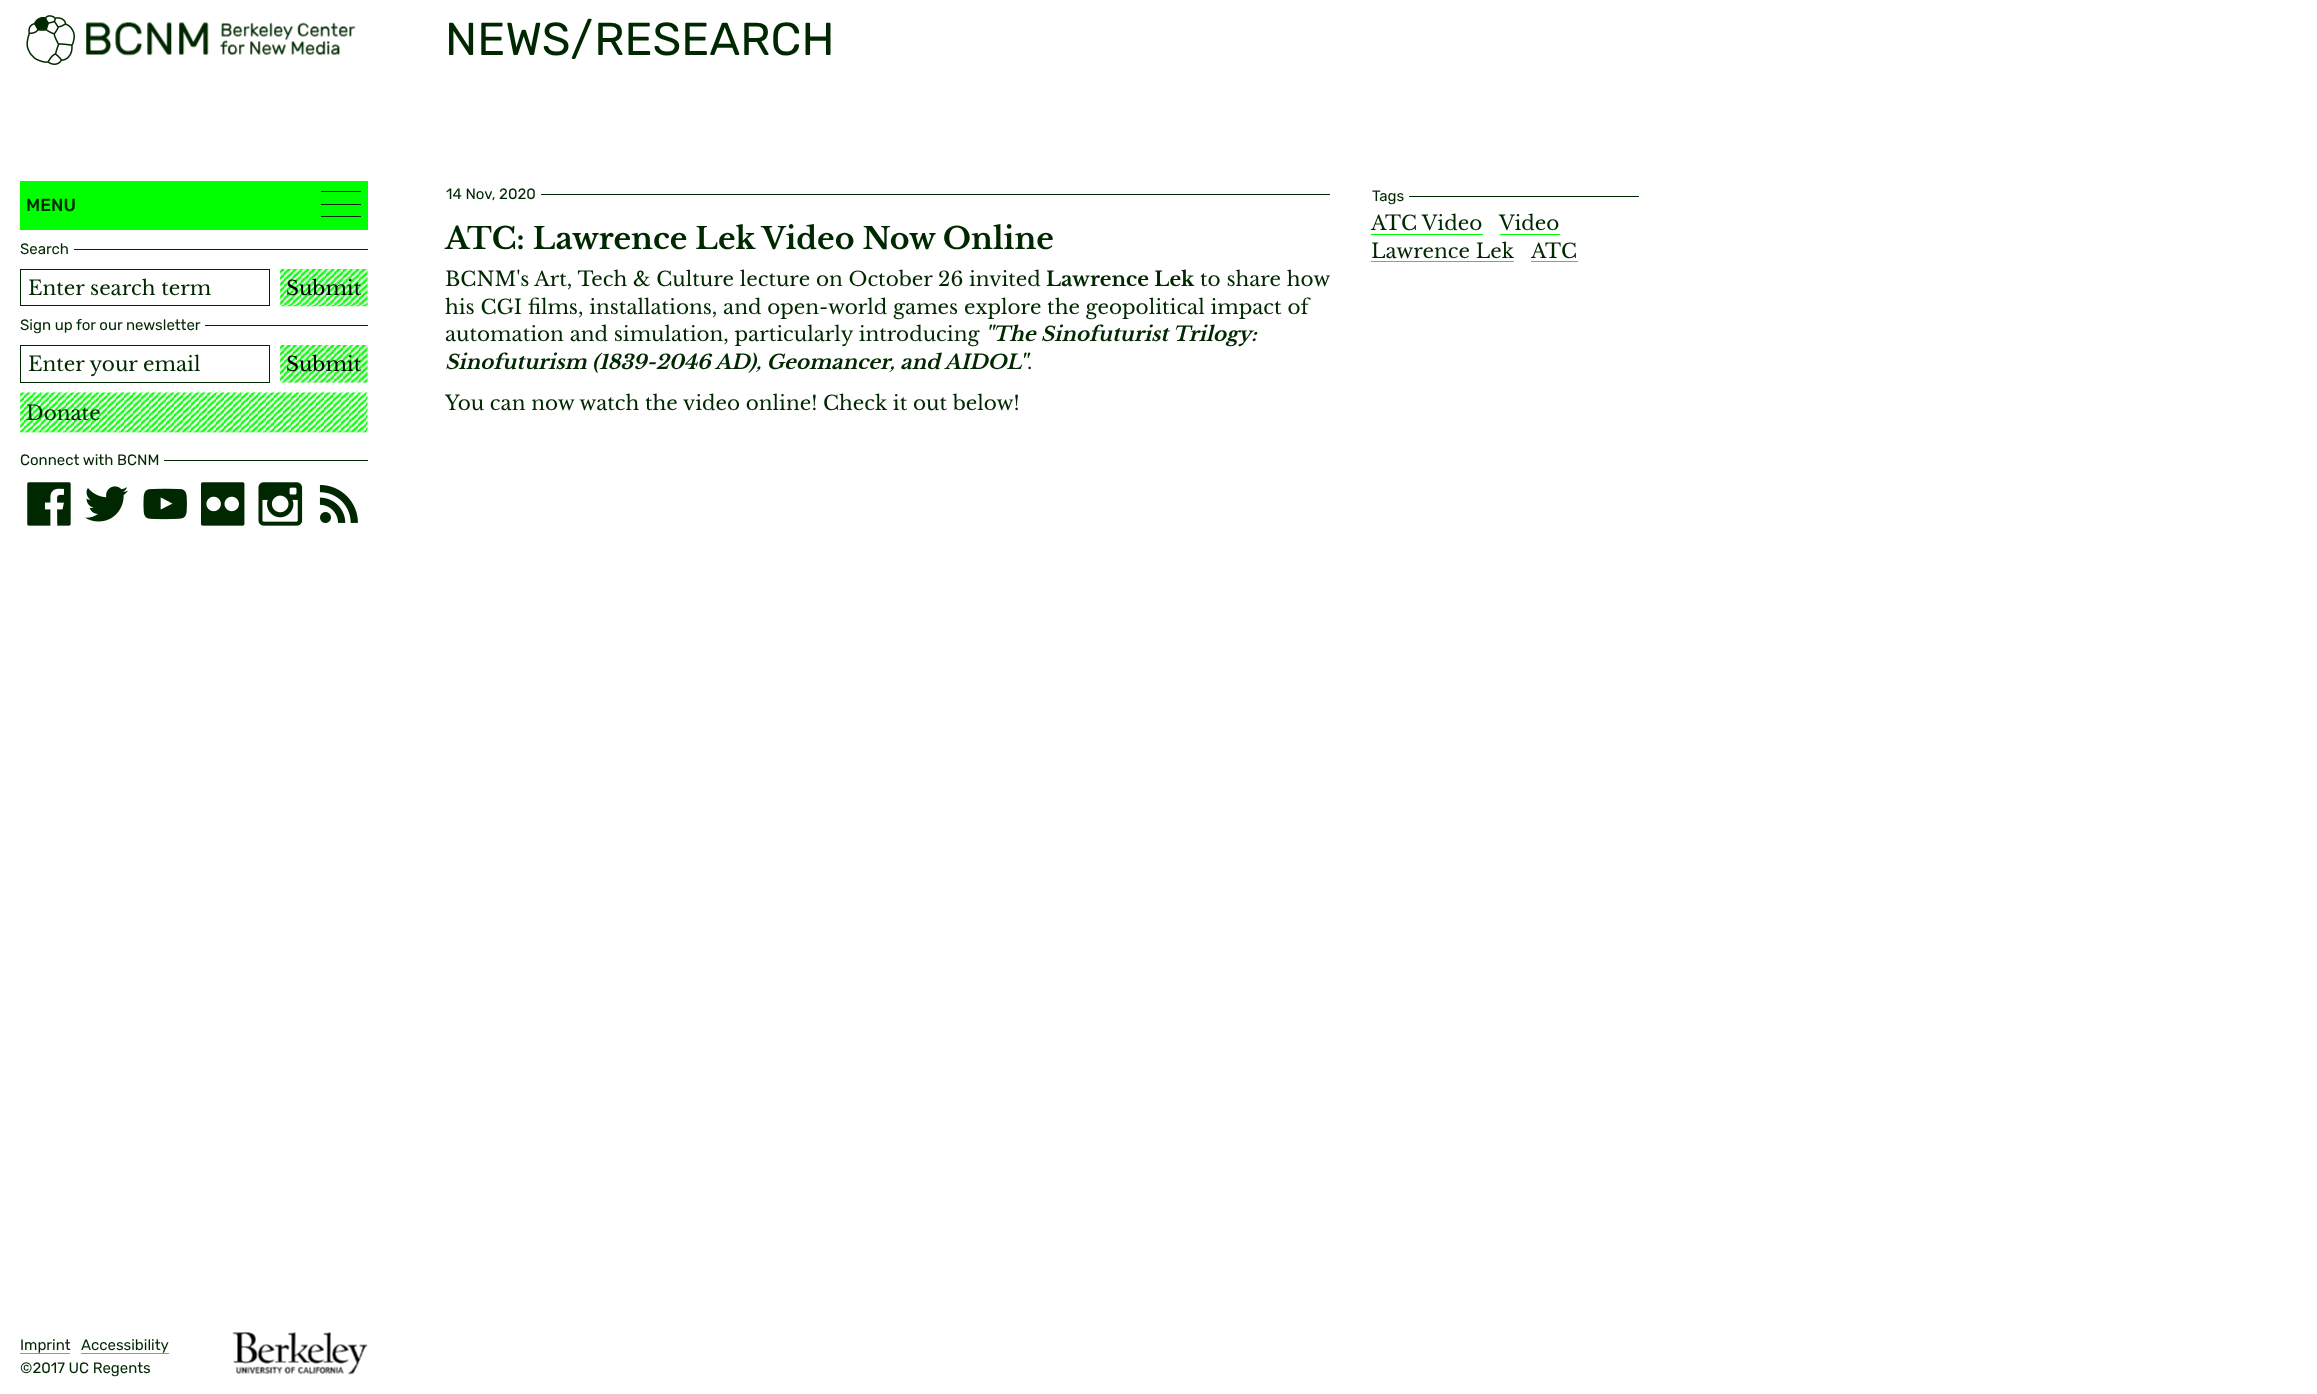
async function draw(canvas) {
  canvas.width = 2317
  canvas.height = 1394
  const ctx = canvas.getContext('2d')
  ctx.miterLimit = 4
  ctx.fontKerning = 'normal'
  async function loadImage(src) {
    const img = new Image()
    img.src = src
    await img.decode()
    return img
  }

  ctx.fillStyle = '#fff'
  ctx.fillRect(0, 0, 2317, 1394)
  ctx.drawImage(await loadImage('image0.png'), 26, 15, 49, 50)
  ctx.drawImage(await loadImage('image1.png'), 86, 22, 270, 34)
  ctx.font = '300 46.25px Rubik'
  ctx.fillStyle = '#002800'
  ctx.fillText('NEWS/RESEARCH', 445, 55)
  ctx.fillStyle = '#0f0'
  ctx.fillRect(20, 181, 348, 49)
  ctx.font = '300 17.5px "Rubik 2"'
  ctx.fillStyle = '#002800'
  ctx.fillText('MENU', 26, 211)
  ctx.fillRect(321, 191, 40, 1)
  ctx.fillRect(321, 204, 40, 1)
  ctx.fillRect(321, 216, 40, 1)
  ctx.font = '300 15px Rubik'
  ctx.fillText('Search', 20, 254)
  ctx.fillRect(74, 249, 294, 1)
  ctx.strokeStyle = '#002800'
  ctx.strokeRect(20.5, 269.5, 249, 36)
  ctx.font = '20px Libre Baskerville'
  ctx.fillText('Enter search term', 28, 295)
  ctx.fillStyle = '#efefef'
  ctx.fillRect(280, 269, 88, 37)
  ctx.drawImage(await loadImage('image2.png'), 280, 268, 88, 39)
  ctx.fillStyle = '#000'
  ctx.fillText('Submit', 286, 295)
  ctx.font = '300 15px Rubik'
  ctx.fillStyle = '#002800'
  ctx.fillText('Sign up for our newsletter', 20, 330)
  ctx.fillRect(205, 325, 163, 1)
  ctx.strokeRect(20.5, 345.5, 249, 37)
  ctx.font = '20px Libre Baskerville'
  ctx.fillText('Enter your email', 28, 371)
  ctx.fillStyle = '#efefef'
  ctx.fillRect(280, 345, 88, 38)
  ctx.drawImage(await loadImage('image3.png'), 280, 345, 88, 38)
  ctx.fillStyle = '#000'
  ctx.fillText('Submit', 286, 371)
  ctx.drawImage(await loadImage('image4.png'), 20, 392, 348, 41)
  ctx.fillStyle = '#002800'
  ctx.fillText('Donate', 26, 420)
  ctx.font = '300 15px Rubik'
  ctx.fillText('Connect with BCNM', 20, 465)
  ctx.fillRect(164, 460, 204, 1)
  ctx.drawImage(await loadImage('image5.png'), 27, 482, 44, 44)
  ctx.drawImage(await loadImage('image6.png'), 85, 486, 43, 36)
  ctx.drawImage(await loadImage('image7.png'), 143, 488, 44, 32)
  ctx.drawImage(await loadImage('image8.png'), 201, 482, 44, 44)
  ctx.drawImage(await loadImage('image9.png'), 258, 482, 45, 44)
  ctx.drawImage(await loadImage('image10.png'), 319, 485, 39, 38)
  ctx.fillText('Imprint', 20, 1350)
  ctx.fillStyle = '#0f0'
  ctx.fillRect(20, 1353, 50, 1)
  ctx.fillStyle = '#002800'
  ctx.fillText('Accessibility', 81, 1350)
  ctx.fillStyle = '#0f0'
  ctx.fillRect(81, 1353, 88, 1)
  ctx.drawImage(await loadImage('image11.png'), 232, 1332, 136, 43)
  ctx.fillStyle = '#002800'
  ctx.fillText('©2017 UC Regents', 20, 1373)
  ctx.fillText('14 Nov, 2020', 446, 199)
  ctx.fillRect(541, 194, 789, 1)
  ctx.font = 'bold 30px Libre Baskerville'
  ctx.fillText('ATC: Lawrence Lek Video Now Online', 445, 249)
  ctx.font = '20px Libre Baskerville'
  ctx.fillText('BCNM\'s Art, Tech & Culture lecture on October 26 invited', 445, 286)
  ctx.font = 'bold 20px Libre Baskerville'
  ctx.fillText('Lawrence Lek', 1046, 286)
  ctx.font = '20px Libre Baskerville'
  ctx.fillText('to share how', 1200, 286)
  ctx.fillText('his CGI films, installations, and open-world games explore the geopolitical impact of', 445, 314)
  ctx.fillText('automation and simulation, particularly introducing', 445, 341)
  ctx.font = 'italic bold 20px Libre Baskerville'
  ctx.fillText('"The Sinofuturist Trilogy:', 985, 341)
  ctx.fillText('Sinofuturism (1839-2046 AD), Geomancer, and AIDOL"', 445, 369)
  ctx.font = '20px Libre Baskerville'
  ctx.fillText('.', 1027, 369)
  ctx.fillText('You can now watch the video online! Check it out below!', 445, 410)
  ctx.font = '300 15px Rubik'
  ctx.fillText('Tags', 1372, 201)
  ctx.fillRect(1409, 196, 230, 1)
  ctx.font = '20px Libre Baskerville'
  ctx.fillText('ATC Video', 1371, 230)
  ctx.fillStyle = '#0f0'
  ctx.fillRect(1371, 234, 112, 1)
  ctx.fillStyle = '#002800'
  ctx.fillText('Video', 1499, 230)
  ctx.fillStyle = '#0f0'
  ctx.fillRect(1500, 234, 60, 1)
  ctx.fillStyle = '#002800'
  ctx.fillText('Lawrence Lek', 1371, 258)
  ctx.fillStyle = '#0f0'
  ctx.fillRect(1371, 261, 143, 1)
  ctx.fillStyle = '#002800'
  ctx.fillText('ATC', 1531, 258)
  ctx.fillStyle = '#0f0'
  ctx.fillRect(1531, 261, 47, 1)
}

draw(document.querySelector('canvas'))
